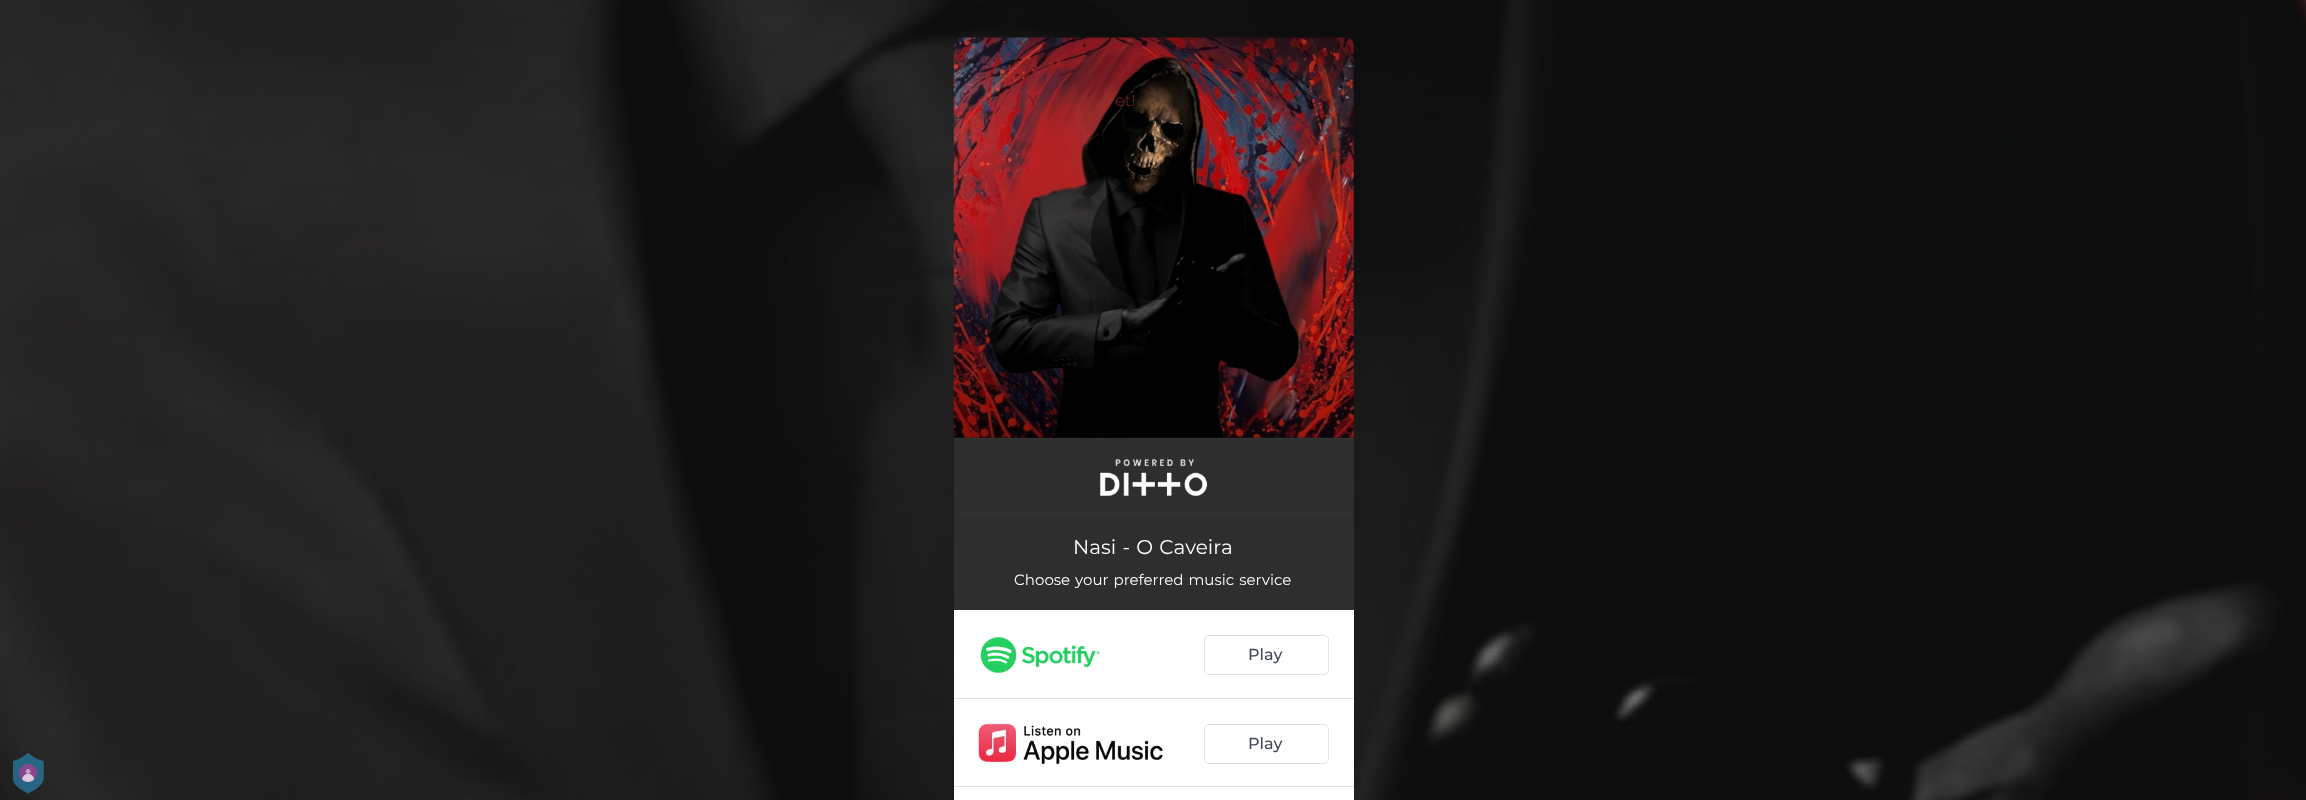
async function draw(canvas) {
  canvas.width = 2306
  canvas.height = 800
  const ctx = canvas.getContext('2d')
  ctx.miterLimit = 4
  ctx.fontKerning = 'normal'
  async function loadImage(src) {
    const img = new Image()
    img.src = src
    await img.decode()
    return img
  }

  ctx.fillStyle = '#fff'
  ctx.fillRect(0, 0, 2306, 800)
  ctx.drawImage(await loadImage('image0.png'), 0, 0, 2306, 800)
  ctx.drawImage(await loadImage('image1.png'), 953, 37, 401, 401)
  ctx.fillStyle = '#00000073'
  ctx.beginPath()
  ctx.arc(1153.5, 237.5, 62.5, 0, 2 * Math.PI)
  ctx.fill()
  ctx.wordSpacing = '1px'
  ctx.font = '16px Montserrat'
  ctx.fillStyle = '#671c1f'
  ctx.fillText('Y', 1028, 106)
  ctx.fillText('et!', 1115, 106)
  ctx.fillStyle = '#2e2e2e'
  ctx.fillRect(954, 439, 400, 74)
  ctx.fillStyle = '#333'
  ctx.fillRect(954, 438, 400, 1)
  ctx.fillRect(954, 513, 400, 1)
  ctx.drawImage(await loadImage('image2.png'), 1100, 459, 108, 38)
  ctx.fillStyle = '#2e2e2e'
  ctx.fillRect(954, 514, 400, 96)
  ctx.font = '20px Montserrat'
  ctx.fillStyle = '#fff'
  ctx.fillText('Nasi - O Caveira', 1073, 554)
  ctx.font = '15px Montserrat'
  ctx.fillText('Choose your preferred music service', 1014, 585)
  ctx.fillRect(954, 610, 400, 190)
  ctx.fillStyle = '#e1e1e4'
  ctx.fillRect(954, 698, 400, 1)
  ctx.drawImage(await loadImage('image3.png'), 980, 637, 120, 36)
  ctx.beginPath()
  ctx.roundRect(1204.5, 635.5, 124, 39, 4.5)
  ctx.strokeStyle = '#e1e1e4'
  ctx.stroke()
  ctx.wordSpacing = '0px'
  ctx.font = '500 16px Montserrat'
  ctx.fillStyle = '#414754'
  ctx.fillText('Play', 1248, 660)
  ctx.fillStyle = '#e1e1e4'
  ctx.fillRect(954, 786, 400, 1)
  ctx.drawImage(await loadImage('image4.png'), 978, 723, 185, 41)
  ctx.beginPath()
  ctx.roundRect(1204.5, 724.5, 124, 39, 4.5)
  ctx.stroke()
  ctx.fillStyle = '#414754'
  ctx.fillText('Play', 1248, 749)
  ctx.drawImage(await loadImage('image5.png'), 13, 753, 31, 41)
}

draw(document.querySelector('canvas'))
